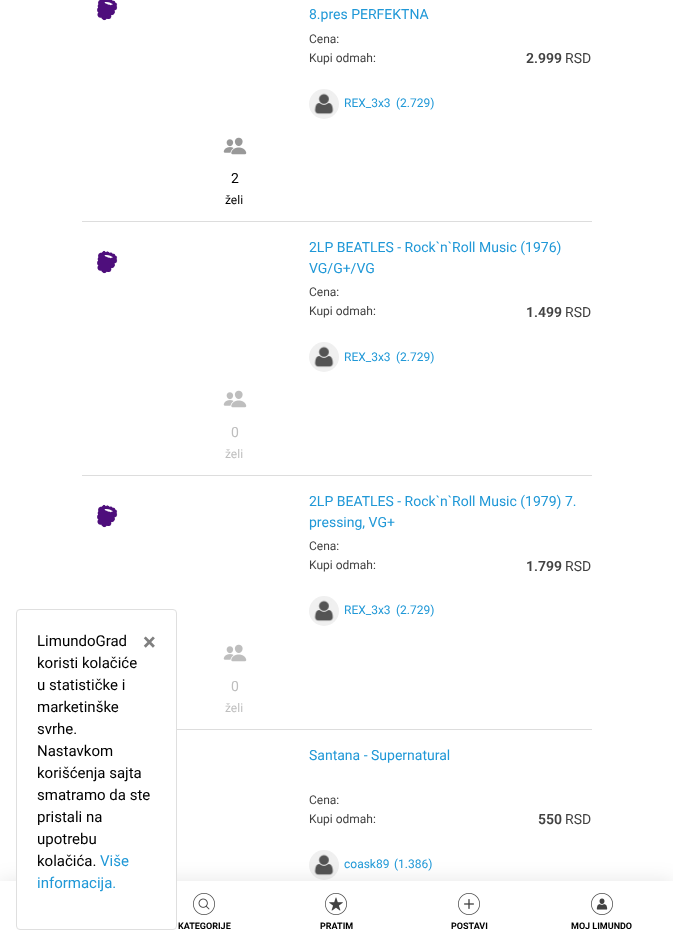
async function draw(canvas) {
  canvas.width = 673
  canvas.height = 946
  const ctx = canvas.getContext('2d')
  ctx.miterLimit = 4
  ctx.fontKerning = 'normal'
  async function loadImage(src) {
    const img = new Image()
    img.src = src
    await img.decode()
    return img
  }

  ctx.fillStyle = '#fff'
  ctx.fillRect(0, 0, 673, 946)
  ctx.drawImage(await loadImage('image1.png'), 309, 850, 30, 30)
  ctx.fillStyle = '#0000001a'
  ctx.filter = 'blur(10px)'
  ctx.beginPath()
  ctx.rect(0, 881, 673, 65)
  ctx.fill()
  ctx.filter = 'none'
  ctx.fillStyle = '#fff'
  ctx.fillRect(0, 881, 673, 65)
  ctx.beginPath()
  ctx.roundRect(16.5, 609.5, 160, 320, 3.5)
  ctx.fill()
  ctx.strokeStyle = '#dfdfdf'
  ctx.stroke()
  ctx.font = '15px Roboto'
  ctx.fillStyle = '#000'
  ctx.fillText('LimundoGrad', 37, 646)
  ctx.fillText('koristi kolačiće', 37, 668)
  ctx.fillText('u statističke i', 37, 690)
  ctx.fillText('marketinške', 37, 712)
  ctx.fillText('svrhe.', 37, 734)
  ctx.fillText('Nastavkom', 37, 756)
  ctx.fillText('korišćenja sajta', 37, 778)
  ctx.fillText('smatramo da ste', 37, 800)
  ctx.fillText('pristali na', 37, 822)
  ctx.fillText('upotrebu', 37, 844)
  ctx.fillText('kolačića.', 37, 866)
  ctx.fillStyle = '#2098d7'
  ctx.fillText('Više', 100, 866)
  ctx.fillText('informacija.', 37, 888)
  ctx.font = 'bold 24px Roboto'
  ctx.fillStyle = '#808080'
  ctx.fillText('×', 143, 650)
  ctx.drawImage(await loadImage('image0.png'), 97, 0, 21, 21)
  ctx.font = '14px Roboto'
  ctx.fillStyle = '#2098d7'
  ctx.fillText('8.pres PERFEKTNA', 309, 19)
  ctx.font = '12px Roboto'
  ctx.fillStyle = '#424242'
  ctx.fillText('Cena:', 309, 43)
  ctx.fillText('Kupi odmah:', 309, 62)
  ctx.font = '600 14px Roboto'
  ctx.fillText('2.999', 526, 63)
  ctx.font = '14px Roboto'
  ctx.fillText('RSD', 565, 63)
  ctx.drawImage(await loadImage('image1.png'), 309, 89, 30, 30)
  ctx.font = '12px Roboto'
  ctx.fillStyle = '#2098d7'
  ctx.fillText('REX_3x3', 344, 107)
  ctx.fillText('(2.729)', 396, 107)
  ctx.drawImage(await loadImage('image2.png'), 223, 137, 24, 18)
  ctx.font = '14px Roboto'
  ctx.fillStyle = '#000'
  ctx.fillText('2', 231, 183)
  ctx.font = '12px Roboto'
  ctx.fillText('želi', 225, 204)
  ctx.fillStyle = '#ddd'
  ctx.fillRect(82, 221, 510, 1)
  ctx.drawImage(await loadImage('image3.png'), 97, 250, 21, 24)
  ctx.font = '14px Roboto'
  ctx.fillStyle = '#2098d7'
  ctx.fillText('2LP BEATLES - Rock`n`Roll Music (1976)', 309, 252)
  ctx.fillText('VG/G+/VG', 309, 273)
  ctx.font = '12px Roboto'
  ctx.fillStyle = '#424242'
  ctx.fillText('Cena:', 309, 296)
  ctx.fillText('Kupi odmah:', 309, 315)
  ctx.font = '600 14px Roboto'
  ctx.fillText('1.499', 526, 317)
  ctx.font = '14px Roboto'
  ctx.fillText('RSD', 565, 317)
  ctx.drawImage(await loadImage('image1.png'), 309, 342, 30, 30)
  ctx.font = '12px Roboto'
  ctx.fillStyle = '#2098d7'
  ctx.fillText('REX_3x3', 344, 361)
  ctx.fillText('(2.729)', 396, 361)
  ctx.drawImage(await loadImage('image4.png'), 223, 390, 24, 18)
  ctx.font = '14px Roboto'
  ctx.fillStyle = '#bebebe'
  ctx.fillText('0', 231, 437)
  ctx.font = '12px Roboto'
  ctx.fillText('želi', 225, 458)
  ctx.fillStyle = '#ddd'
  ctx.fillRect(82, 475, 510, 1)
  ctx.drawImage(await loadImage('image3.png'), 97, 504, 21, 24)
  ctx.font = '14px Roboto'
  ctx.fillStyle = '#2098d7'
  ctx.fillText('2LP BEATLES - Rock`n`Roll Music (1979) 7.', 309, 506)
  ctx.fillText('pressing, VG+', 309, 527)
  ctx.font = '12px Roboto'
  ctx.fillStyle = '#424242'
  ctx.fillText('Cena:', 309, 550)
  ctx.fillText('Kupi odmah:', 309, 569)
  ctx.font = '600 14px Roboto'
  ctx.fillText('1.799', 526, 571)
  ctx.font = '14px Roboto'
  ctx.fillText('RSD', 565, 571)
  ctx.drawImage(await loadImage('image1.png'), 309, 596, 30, 30)
  ctx.font = '12px Roboto'
  ctx.fillStyle = '#2098d7'
  ctx.fillText('REX_3x3', 344, 614)
  ctx.fillText('(2.729)', 396, 614)
  ctx.drawImage(await loadImage('image4.png'), 223, 644, 24, 18)
  ctx.font = '14px Roboto'
  ctx.fillStyle = '#bebebe'
  ctx.fillText('0', 231, 691)
  ctx.font = '12px Roboto'
  ctx.fillText('želi', 225, 712)
  ctx.fillStyle = '#ddd'
  ctx.fillRect(177, 729, 415, 1)
  ctx.font = '14px Roboto'
  ctx.fillStyle = '#2098d7'
  ctx.fillText('Santana - Supernatural', 309, 760)
  ctx.font = '12px Roboto'
  ctx.fillStyle = '#424242'
  ctx.fillText('Cena:', 309, 804)
  ctx.fillText('Kupi odmah:', 309, 823)
  ctx.font = '600 14px Roboto'
  ctx.fillText('550', 538, 824)
  ctx.font = '14px Roboto'
  ctx.fillText('RSD', 565, 824)
  ctx.font = '12px Roboto'
  ctx.fillStyle = '#2098d7'
  ctx.fillText('coask89', 344, 868)
  ctx.fillText('(1.386)', 394, 868)
  ctx.drawImage(await loadImage('image5.png'), 193, 893, 22, 22)
  ctx.font = 'bold 9px Roboto'
  ctx.fillStyle = '#000'
  ctx.fillText('KATEGORIJE', 178, 929)
  ctx.drawImage(await loadImage('image6.png'), 325, 893, 22, 22)
  ctx.fillText('PRATIM', 320, 929)
  ctx.drawImage(await loadImage('image7.png'), 458, 893, 22, 22)
  ctx.fillText('POSTAVI', 451, 929)
  ctx.drawImage(await loadImage('image8.png'), 591, 893, 22, 22)
  ctx.fillText('MOJ LIMUNDO', 571, 929)
}

draw(document.querySelector('canvas'))
